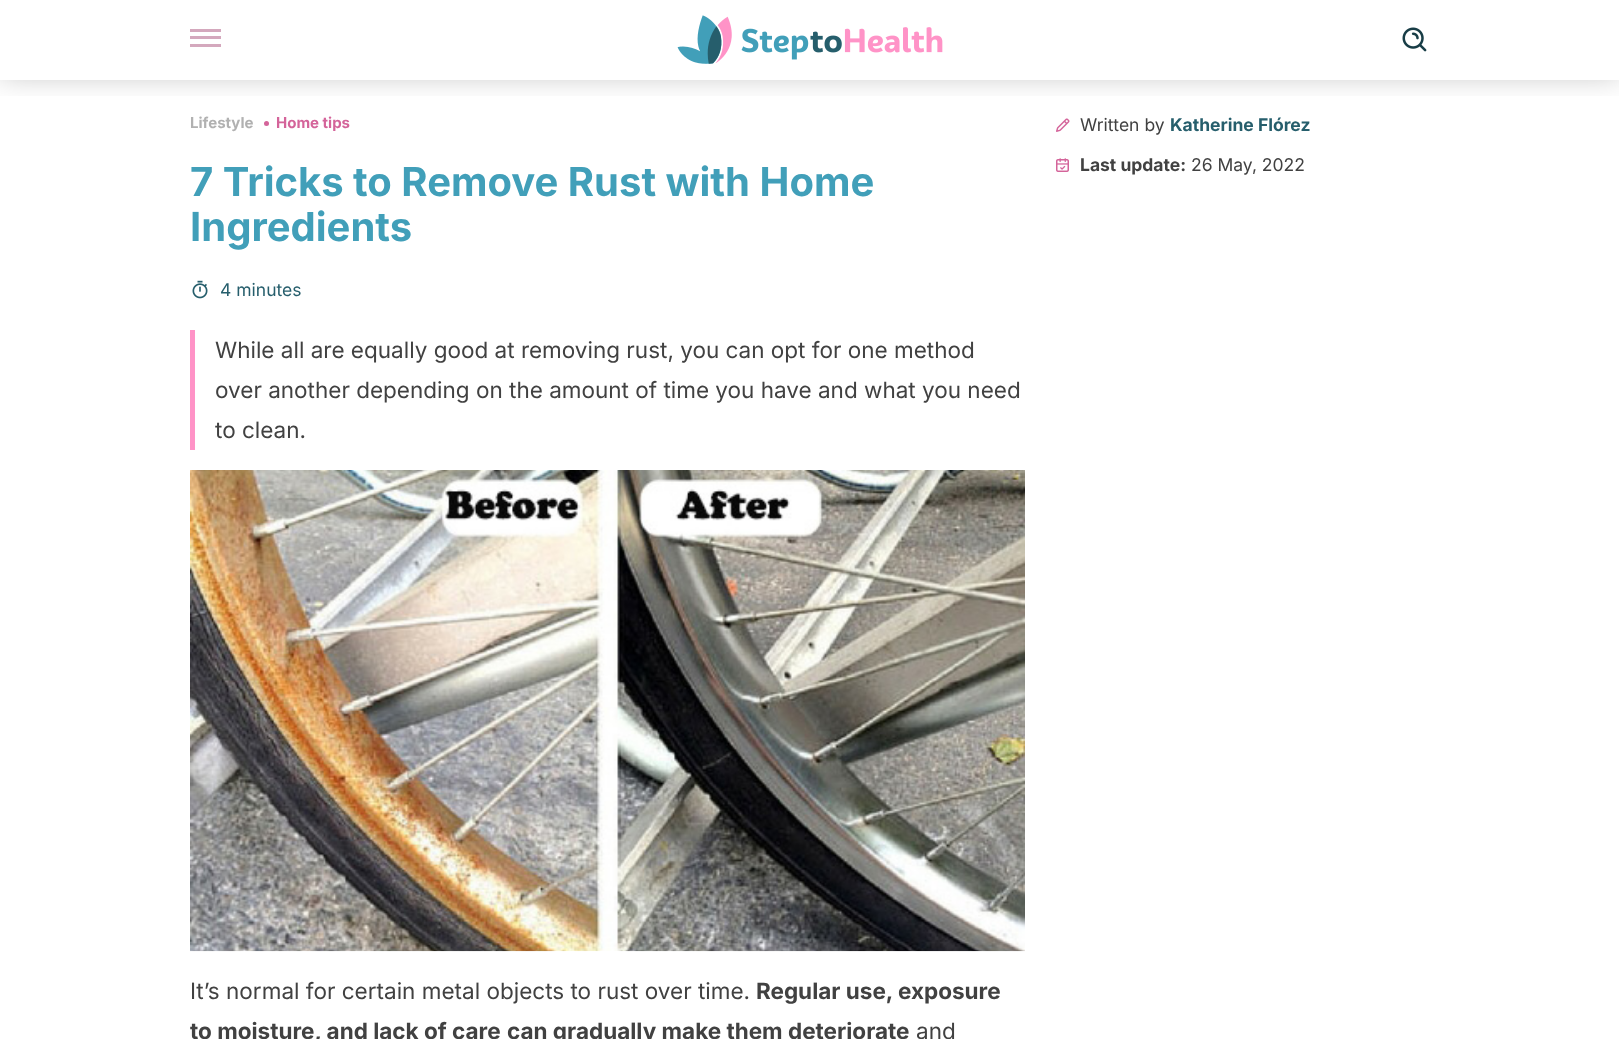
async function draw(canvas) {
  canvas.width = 1619
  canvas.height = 1039
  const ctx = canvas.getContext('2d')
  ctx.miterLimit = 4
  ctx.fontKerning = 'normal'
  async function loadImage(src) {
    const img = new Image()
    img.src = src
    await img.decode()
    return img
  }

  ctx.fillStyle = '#fff'
  ctx.fillRect(0, 0, 1619, 1039)
  ctx.drawImage(await loadImage('image4.png'), 1056, 118, 14, 14)
  ctx.save()
  ctx.beginPath()
  ctx.rect(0, 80, 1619, 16)
  ctx.clip()
  ctx.fillStyle = '#00000040'
  ctx.filter = 'blur(15px)'
  ctx.beginPath()
  ctx.rect(0, -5, 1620, 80)
  ctx.fill()
  ctx.filter = 'none'
  ctx.restore()
  ctx.fillStyle = '#d4a8bd'
  ctx.fillRect(190, 29, 31, 3)
  ctx.fillRect(190, 36, 31, 3)
  ctx.fillRect(190, 44, 31, 3)
  ctx.drawImage(await loadImage('image0.png'), 677, 15, 266, 49)
  ctx.drawImage(await loadImage('image1.png'), 1402, 27, 25, 25)
  ctx.font = 'bold 15px Inter'
  ctx.fillStyle = '#b1b1b1'
  ctx.fillText('Lifestyle', 190, 128)
  ctx.fillStyle = '#d4649a'
  ctx.beginPath()
  ctx.arc(266.5, 123.5, 2.5, 0, 2 * Math.PI)
  ctx.fill()
  ctx.fillText('Home tips', 276, 128)
  ctx.font = 'bold 40px Inter'
  ctx.fillStyle = '#419fb9'
  ctx.fillText('7 Tricks to Remove Rust with Home', 190, 196)
  ctx.fillText('Ingredients', 190, 241)
  ctx.drawImage(await loadImage('image2.png'), 192, 280, 16, 19)
  ctx.font = '17.5px Inter'
  ctx.fillStyle = '#265e6c'
  ctx.fillText('4 minutes', 220, 296)
  ctx.fillStyle = '#ff93c7'
  ctx.fillRect(190, 330, 5, 120)
  ctx.font = '22.5px Inter'
  ctx.fillStyle = '#414141'
  ctx.fillText('While all are equally good at removing rust, you can opt for one method', 215, 358)
  ctx.fillText('over another depending on the amount of time you have and what you need', 215, 398)
  ctx.fillText('to clean.', 215, 438)
  ctx.drawImage(await loadImage('image3.png'), 190, 470, 835, 482)
  ctx.fillText('It’s normal for certain metal objects to rust over time.', 190, 999)
  ctx.font = 'bold 22.5px Inter'
  ctx.fillText('Regular use, exposure', 756, 999)
  ctx.fillText('to moisture, and lack of care', 190, 1039)
  ctx.fillText('can gradually make them deteriorate', 507, 1039)
  ctx.font = '22.5px Inter'
  ctx.fillText('and', 916, 1039)
  ctx.font = '17.5px Inter'
  ctx.fillText('Written by', 1080, 131)
  ctx.font = 'bold 17.5px Inter'
  ctx.fillStyle = '#265e6c'
  ctx.fillText('Katherine Flórez', 1170, 131)
  ctx.drawImage(await loadImage('image5.png'), 1056, 158, 13, 14)
  ctx.fillStyle = '#414141'
  ctx.fillText('Last update:', 1080, 171)
  ctx.font = '17.5px Inter'
  ctx.fillText('26 May, 2022', 1191, 171)
}

draw(document.querySelector('canvas'))
